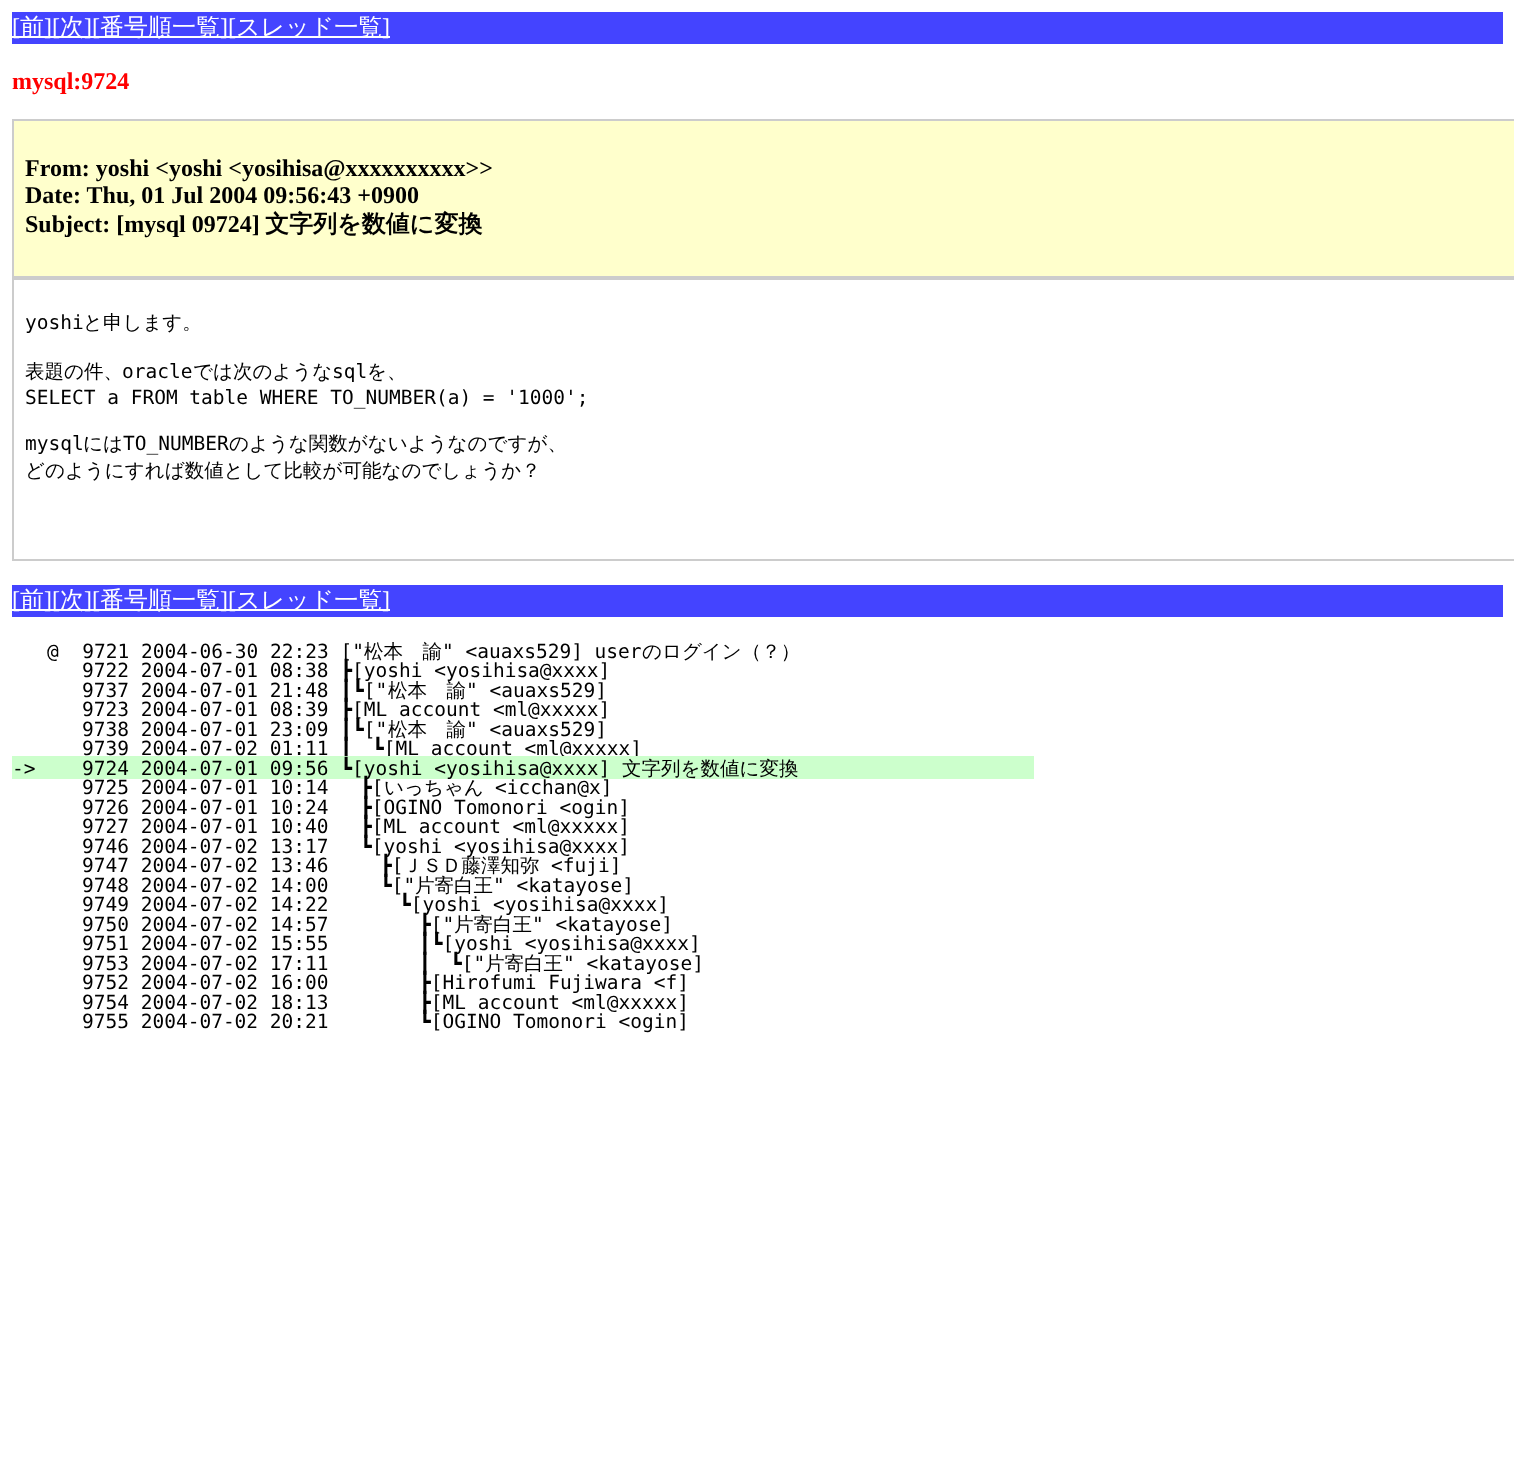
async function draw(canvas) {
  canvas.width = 1514
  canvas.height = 1462
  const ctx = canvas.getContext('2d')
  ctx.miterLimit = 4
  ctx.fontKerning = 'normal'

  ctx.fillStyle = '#fff'
  ctx.fillRect(0, 0, 1514, 1462)
  ctx.fillStyle = '#44f'
  ctx.fillRect(12, 12, 1491, 32)
  ctx.fillStyle = '#fff'
  ctx.fillRect(12, 36, 378, 2)
  ctx.font = '24px Liberation Serif'
  ctx.fillText('[', 12, 35)
  ctx.font = '500 24px WenQuanYi Zen Hei'
  ctx.fillText('前', 20, 35)
  ctx.font = '24px Liberation Serif'
  ctx.fillText('][', 44, 35)
  ctx.font = '500 24px WenQuanYi Zen Hei'
  ctx.fillText('次', 60, 35)
  ctx.font = '24px Liberation Serif'
  ctx.fillText('][', 84, 35)
  ctx.font = '500 24px WenQuanYi Zen Hei'
  ctx.fillText('番号順一覧', 100, 35)
  ctx.font = '24px Liberation Serif'
  ctx.fillText('][', 220, 35)
  ctx.font = '500 24px WenQuanYi Zen Hei'
  ctx.fillText('スレッド一覧', 236, 35)
  ctx.font = '24px Liberation Serif'
  ctx.fillText(']', 382, 35)
  ctx.font = 'bold 24px Liberation Serif'
  ctx.fillStyle = '#f00'
  ctx.fillText('mysql:9724', 12, 89)
  ctx.fillStyle = '#ffc'
  ctx.beginPath()
  ctx.rect(13, 120, 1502, 157)
  ctx.fill()
  ctx.strokeStyle = '#ccc'
  ctx.lineWidth = 2
  ctx.stroke()
  ctx.fillStyle = '#000'
  ctx.fillText('From: yoshi <yoshi <yosihisa@xxxxxxxxxx>>', 25, 176)
  ctx.fillText('Date: Thu, 01 Jul 2004 09:56:43 +0900', 25, 203)
  ctx.fillText('Subject: [mysql 09724]', 25, 232)
  ctx.font = 'bold 24px WenQuanYi Zen Hei'
  ctx.fillText('文字列を数値に変換', 265, 232)
  ctx.strokeRect(13, 279, 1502, 281)
  ctx.font = '19.5px DejaVu Sans Mono'
  ctx.fillText('yoshi', 25, 329)
  ctx.font = '500 19.5px WenQuanYi Zen Hei'
  ctx.fillText('と申します。', 83, 329)
  ctx.fillText('表題の件、', 25, 378)
  ctx.font = '19.5px DejaVu Sans Mono'
  ctx.fillText('oracle', 122, 378)
  ctx.font = '500 19.5px WenQuanYi Zen Hei'
  ctx.fillText('では次のような', 193, 378)
  ctx.font = '19.5px DejaVu Sans Mono'
  ctx.fillText('sql', 332, 378)
  ctx.font = '500 19.5px WenQuanYi Zen Hei'
  ctx.fillText('を、', 367, 378)
  ctx.font = '19.5px DejaVu Sans Mono'
  ctx.fillText('SELECT a FROM table WHERE TO_NUMBER(a) = \'1000\';', 25, 404)
  ctx.fillText('mysql', 25, 450)
  ctx.font = '500 19.5px WenQuanYi Zen Hei'
  ctx.fillText('には', 83, 450)
  ctx.font = '19.5px DejaVu Sans Mono'
  ctx.fillText('TO_NUMBER', 123, 450)
  ctx.font = '500 19.5px WenQuanYi Zen Hei'
  ctx.fillText('のような関数がないようなのですが、', 229, 450)
  ctx.fillText('どのようにすれば数値として比較が可能なのでしょうか？', 25, 477)
  ctx.fillStyle = '#44f'
  ctx.fillRect(12, 585, 1491, 32)
  ctx.fillStyle = '#fff'
  ctx.fillRect(12, 609, 378, 2)
  ctx.font = '24px Liberation Serif'
  ctx.fillText('[', 12, 608)
  ctx.font = '500 24px WenQuanYi Zen Hei'
  ctx.fillText('前', 20, 608)
  ctx.font = '24px Liberation Serif'
  ctx.fillText('][', 44, 608)
  ctx.font = '500 24px WenQuanYi Zen Hei'
  ctx.fillText('次', 60, 608)
  ctx.font = '24px Liberation Serif'
  ctx.fillText('][', 84, 608)
  ctx.font = '500 24px WenQuanYi Zen Hei'
  ctx.fillText('番号順一覧', 100, 608)
  ctx.font = '24px Liberation Serif'
  ctx.fillText('][', 220, 608)
  ctx.font = '500 24px WenQuanYi Zen Hei'
  ctx.fillText('スレッド一覧', 236, 608)
  ctx.font = '24px Liberation Serif'
  ctx.fillText(']', 382, 608)
  ctx.font = '19.5px DejaVu Sans Mono'
  ctx.fillStyle = '#000'
  ctx.fillText('@  9721 2004-06-30 22:23 ["', 47, 658)
  ctx.font = '500 19.5px WenQuanYi Zen Hei'
  ctx.fillText('松本　諭', 364, 658)
  ctx.font = '19.5px DejaVu Sans Mono'
  ctx.fillText('" <auaxs529] user', 442, 658)
  ctx.font = '500 19.5px WenQuanYi Zen Hei'
  ctx.fillText('のログイン（？）', 642, 658)
  ctx.font = '19.5px DejaVu Sans Mono'
  ctx.fillText('9722 2004-07-01 08:38 ┣[yoshi <yosihisa@xxxx]', 82, 677)
  ctx.fillText('9737 2004-07-01 21:48 ┃┗["', 82, 697)
  ctx.font = '500 19.5px WenQuanYi Zen Hei'
  ctx.fillText('松本　諭', 388, 697)
  ctx.font = '19.5px DejaVu Sans Mono'
  ctx.fillText('" <auaxs529]', 466, 697)
  ctx.fillText('9723 2004-07-01 08:39 ┣[ML account <ml@xxxxx]', 82, 716)
  ctx.fillText('9738 2004-07-01 23:09 ┃┗["', 82, 736)
  ctx.font = '500 19.5px WenQuanYi Zen Hei'
  ctx.fillText('松本　諭', 388, 736)
  ctx.font = '19.5px DejaVu Sans Mono'
  ctx.fillText('" <auaxs529]', 466, 736)
  ctx.fillText('9739 2004-07-02 01:11 ┃', 82, 755)
  ctx.fillText('┗[ML account <ml@xxxxx]', 372, 755)
  ctx.fillStyle = '#cfc'
  ctx.fillRect(12, 756, 1022, 23)
  ctx.fillStyle = '#000'
  ctx.fillText('->', 12, 775)
  ctx.fillText('9724 2004-07-01 09:56 ┗[yoshi <yosihisa@xxxx]', 82, 775)
  ctx.font = '500 19.5px WenQuanYi Zen Hei'
  ctx.fillText('文字列を数値に変換', 622, 775)
  ctx.font = '19.5px DejaVu Sans Mono'
  ctx.fillText('9725 2004-07-01 10:14', 82, 794)
  ctx.fillText('┣[', 360, 794)
  ctx.font = '500 19.5px WenQuanYi Zen Hei'
  ctx.fillText('いっちゃん', 384, 794)
  ctx.font = '19.5px DejaVu Sans Mono'
  ctx.fillText('<icchan@x]', 495, 794)
  ctx.fillText('9726 2004-07-01 10:24', 82, 814)
  ctx.fillText('┣[OGINO Tomonori <ogin]', 360, 814)
  ctx.fillText('9727 2004-07-01 10:40', 82, 833)
  ctx.fillText('┣[ML account <ml@xxxxx]', 360, 833)
  ctx.fillText('9746 2004-07-02 13:17', 82, 853)
  ctx.fillText('┗[yoshi <yosihisa@xxxx]', 360, 853)
  ctx.fillText('9747 2004-07-02 13:46', 82, 872)
  ctx.fillText('┣[', 380, 872)
  ctx.font = '500 19.5px WenQuanYi Zen Hei'
  ctx.fillText('ＪＳＤ藤澤知弥', 403, 872)
  ctx.font = '19.5px DejaVu Sans Mono'
  ctx.fillText('<fuji]', 551, 872)
  ctx.fillText('9748 2004-07-02 14:00', 82, 892)
  ctx.fillText('┗["', 380, 892)
  ctx.font = '500 19.5px WenQuanYi Zen Hei'
  ctx.fillText('片寄白王', 415, 892)
  ctx.font = '19.5px DejaVu Sans Mono'
  ctx.fillText('" <katayose]', 493, 892)
  ctx.fillText('9749 2004-07-02 14:22', 82, 911)
  ctx.fillText('┗[yoshi <yosihisa@xxxx]', 399, 911)
  ctx.fillText('9750 2004-07-02 14:57', 82, 931)
  ctx.fillText('┣["', 419, 931)
  ctx.font = '500 19.5px WenQuanYi Zen Hei'
  ctx.fillText('片寄白王', 454, 931)
  ctx.font = '19.5px DejaVu Sans Mono'
  ctx.fillText('" <katayose]', 532, 931)
  ctx.fillText('9751 2004-07-02 15:55', 82, 950)
  ctx.fillText('┃┗[yoshi <yosihisa@xxxx]', 419, 950)
  ctx.fillText('9753 2004-07-02 17:11', 82, 970)
  ctx.fillText('┃', 419, 970)
  ctx.fillText('┗["', 450, 970)
  ctx.font = '500 19.5px WenQuanYi Zen Hei'
  ctx.fillText('片寄白王', 485, 970)
  ctx.font = '19.5px DejaVu Sans Mono'
  ctx.fillText('" <katayose]', 563, 970)
  ctx.fillText('9752 2004-07-02 16:00', 82, 989)
  ctx.fillText('┣[Hirofumi Fujiwara <f]', 419, 989)
  ctx.fillText('9754 2004-07-02 18:13', 82, 1009)
  ctx.fillText('┣[ML account <ml@xxxxx]', 419, 1009)
  ctx.fillText('9755 2004-07-02 20:21', 82, 1028)
  ctx.fillText('┗[OGINO Tomonori <ogin]', 419, 1028)
}

draw(document.querySelector('canvas'))
